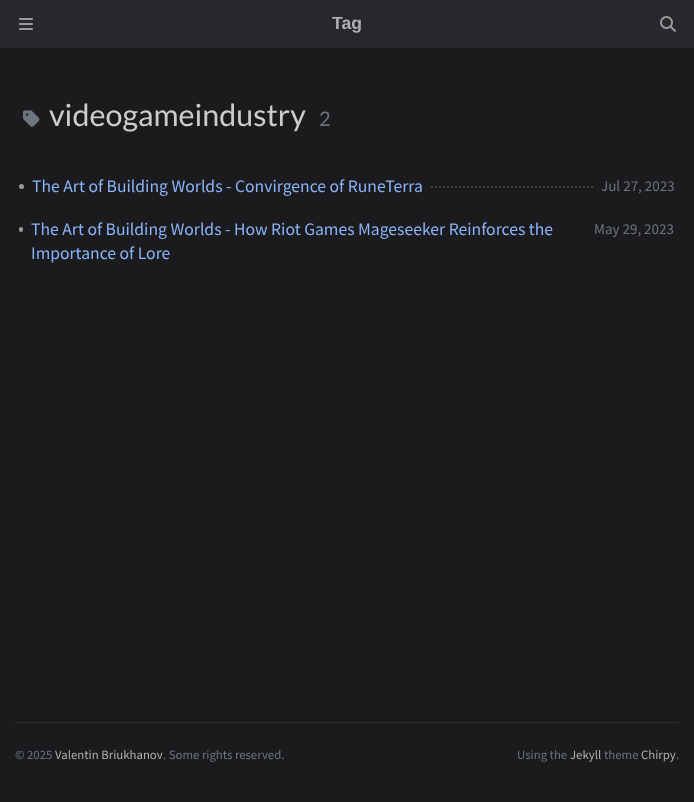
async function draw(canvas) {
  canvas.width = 694
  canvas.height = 802
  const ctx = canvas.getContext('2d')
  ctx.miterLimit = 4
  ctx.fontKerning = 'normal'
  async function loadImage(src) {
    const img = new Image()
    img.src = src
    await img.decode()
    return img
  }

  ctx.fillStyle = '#1b1b1e'
  ctx.fillRect(0, 0, 694, 802)
  ctx.fillStyle = '#27282b'
  ctx.fillRect(0, 0, 694, 47)
  ctx.fillStyle = '#242528'
  ctx.fillRect(0, 47, 694, 1)
  ctx.drawImage(await loadImage('image0.png'), 19, 18, 14, 12)
  ctx.font = 'bold 17.6px Liberation Sans'
  ctx.fillStyle = '#afb0b1'
  ctx.fillText('Tag', 332, 29)
  ctx.drawImage(await loadImage('image1.png'), 660, 16, 16, 16)
  ctx.drawImage(await loadImage('image2.png'), 23, 110, 17, 17)
  ctx.font = '30.5px Lato'
  ctx.fillStyle = '#ccc'
  ctx.fillText('videogameindustry', 49, 126)
  ctx.font = '20px Lato'
  ctx.fillStyle = '#6c757d'
  ctx.fillText('2', 319, 126)
  ctx.fillStyle = '#999'
  ctx.beginPath()
  ctx.arc(21.5, 186.5, 2.5, 0, 2 * Math.PI)
  ctx.fill()
  ctx.font = '17.6px Source Sans Pro'
  ctx.fillStyle = '#8ab4f8'
  ctx.fillText('The Art of Building Worlds - Convirgence of RuneTerra', 32, 192)
  ctx.beginPath()
  ctx.moveTo(431, 187)
  ctx.lineTo(593, 187)
  ctx.strokeStyle = '#3f4144'
  ctx.lineWidth = 2
  ctx.setLineDash([2, 2])
  ctx.stroke()
  ctx.font = '15px Source Sans Pro'
  ctx.fillStyle = '#6c757d'
  ctx.fillText('Jul 27, 2023', 601, 191)
  ctx.fillStyle = '#999'
  ctx.beginPath()
  ctx.roundRect(19, 227, 4, 5, 2)
  ctx.fill()
  ctx.font = '17.6px Source Sans Pro'
  ctx.fillStyle = '#8ab4f8'
  ctx.fillText('The Art of Building Worlds - How Riot Games Mageseeker Reinforces the', 31, 235)
  ctx.fillText('Importance of Lore', 31, 259)
  ctx.font = '15px Source Sans Pro'
  ctx.fillStyle = '#6c757d'
  ctx.fillText('May 29, 2023', 594, 234)
  ctx.fillStyle = '#2c2d2d'
  ctx.fillRect(15, 722, 664, 1)
  ctx.font = '12.75px Source Sans Pro'
  ctx.fillStyle = '#6c757d'
  ctx.fillText('© 2025', 15, 759)
  ctx.fillStyle = '#afb0b1'
  ctx.fillText('Valentin Briukhanov', 55, 759)
  ctx.fillStyle = '#6c757d'
  ctx.fillText('. Some rights reserved.', 163, 759)
  ctx.fillText('Using the', 517, 759)
  ctx.fillStyle = '#afb0b1'
  ctx.fillText('Jekyll', 570, 759)
  ctx.fillStyle = '#6c757d'
  ctx.fillText('theme', 604, 759)
  ctx.fillStyle = '#afb0b1'
  ctx.fillText('Chirpy', 641, 759)
  ctx.fillStyle = '#6c757d'
  ctx.fillText('.', 676, 759)
}

draw(document.querySelector('canvas'))
